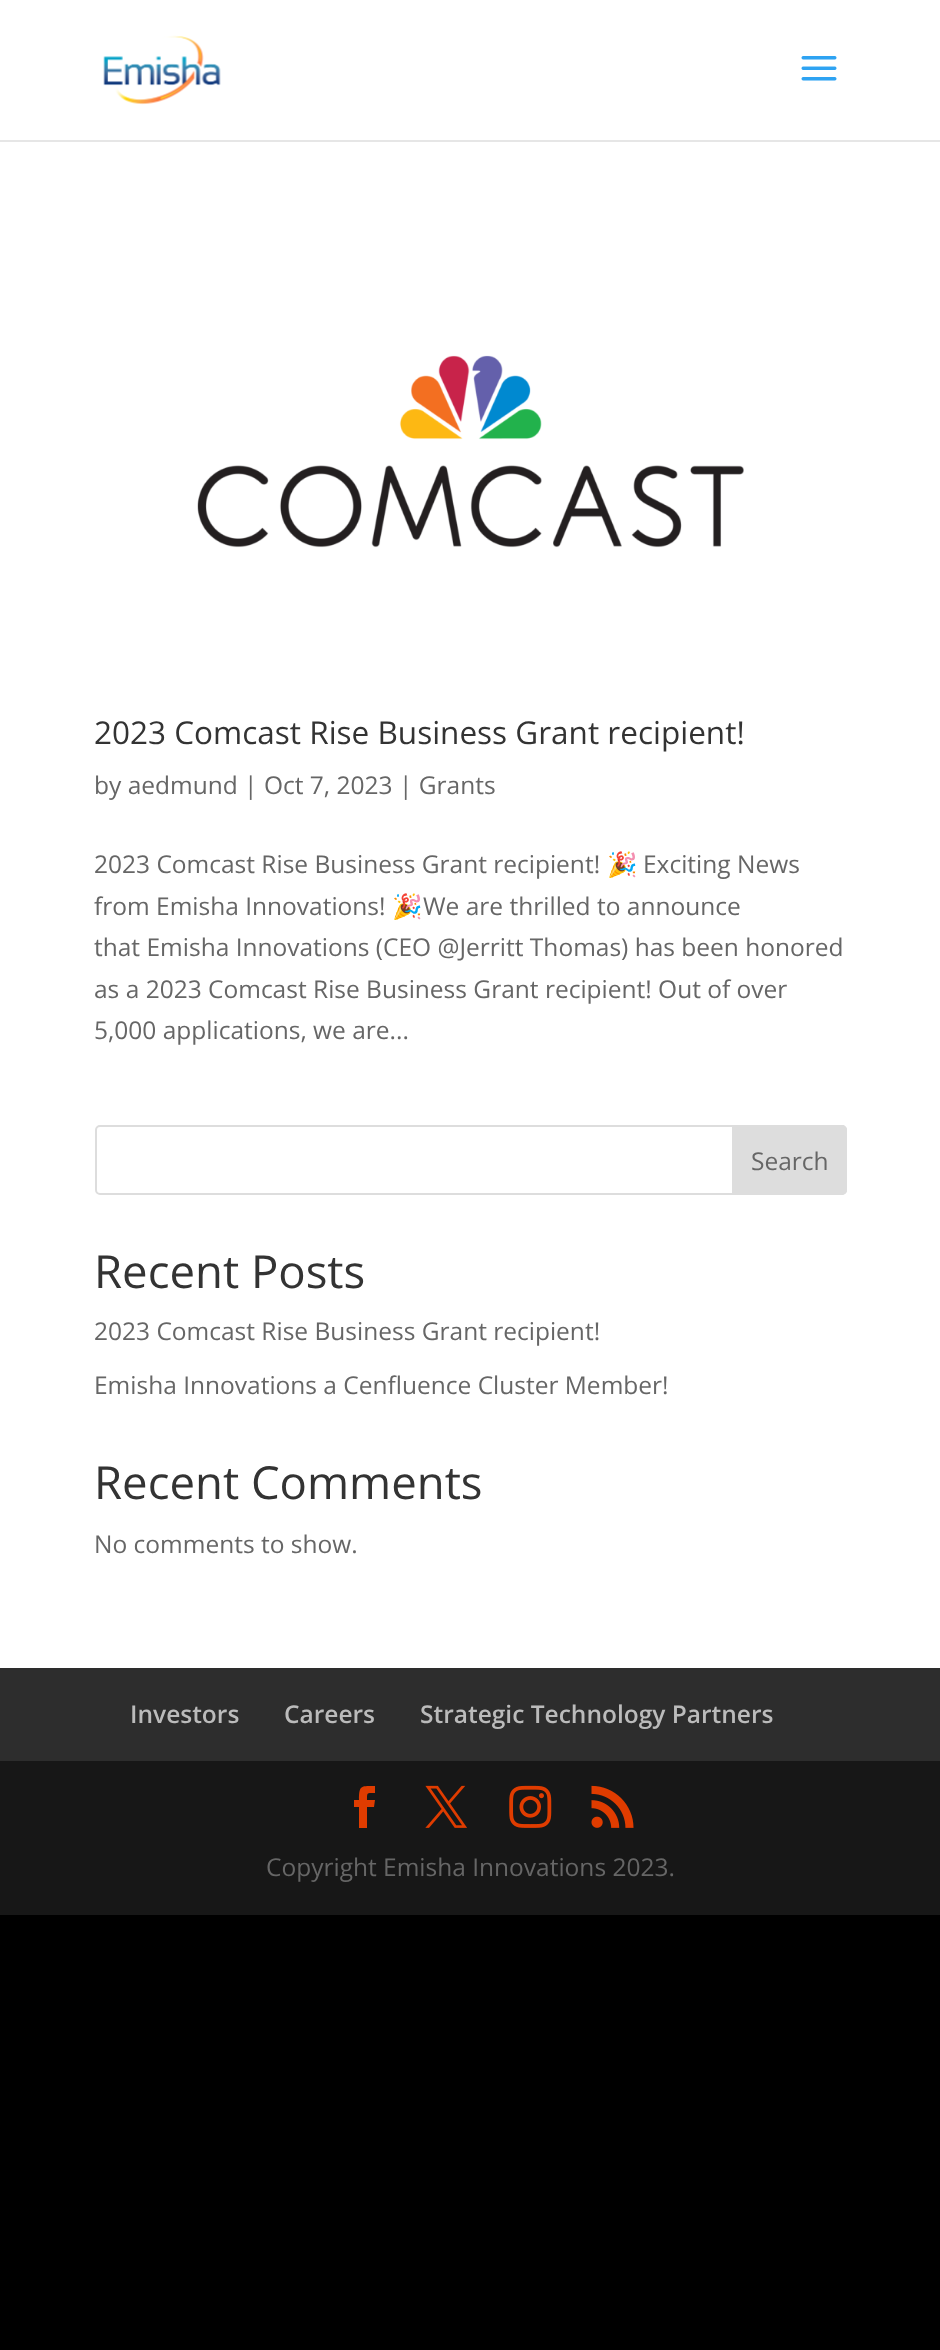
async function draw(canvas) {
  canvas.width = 940
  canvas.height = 2350
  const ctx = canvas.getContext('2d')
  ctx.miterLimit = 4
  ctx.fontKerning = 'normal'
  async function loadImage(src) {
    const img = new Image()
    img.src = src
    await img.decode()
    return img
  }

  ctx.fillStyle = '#000'
  ctx.fillRect(0, 0, 940, 2350)
  ctx.fillStyle = '#e6e6e6'
  ctx.beginPath()
  ctx.moveTo(0, 140)
  ctx.lineTo(0, 142)
  ctx.lineTo(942, 142)
  ctx.lineTo(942, 2)
  ctx.lineTo(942, 140)
  ctx.closePath()
  ctx.fill()
  ctx.fillStyle = '#fff'
  ctx.fillRect(0, 0, 940, 140)
  ctx.drawImage(await loadImage('image0.png'), 103, 35, 118, 70)
  ctx.drawImage(await loadImage('image1.png'), 801, 56, 36, 25)
  ctx.fillRect(0, 142, 940, 1526)
  ctx.drawImage(await loadImage('image2.png'), 197, 355, 547, 193)
  ctx.font = '31.5px Open Sans'
  ctx.fillStyle = '#333'
  ctx.fillText('2023 Comcast Rise Business Grant recipient!', 94, 744)
  ctx.font = '24.5px Open Sans'
  ctx.fillStyle = '#666'
  ctx.fillText('by aedmund | Oct 7, 2023 | Grants', 94, 794)
  ctx.fillText('2023 Comcast Rise Business Grant recipient!', 94, 873)
  ctx.font = '24.5px Noto Color Emoji'
  ctx.fillText('🎉', 607, 873)
  ctx.font = '24.5px Open Sans'
  ctx.fillText('Exciting News', 643, 873)
  ctx.fillText('from Emisha Innovations!', 94, 915)
  ctx.font = '24.5px Noto Color Emoji'
  ctx.fillText('🎉', 392, 915)
  ctx.font = '24.5px Open Sans'
  ctx.fillText('We are thrilled to announce', 423, 915)
  ctx.fillText('that Emisha Innovations (CEO @Jerritt Thomas) has been honored', 94, 956)
  ctx.fillText('as a 2023 Comcast Rise Business Grant recipient! Out of over', 94, 998)
  ctx.fillText('5,000 applications, we are...', 94, 1039)
  ctx.beginPath()
  ctx.roundRect(96, 1126, 750, 68, 4)
  ctx.strokeStyle = '#ddd'
  ctx.lineWidth = 2
  ctx.stroke()
  ctx.fillStyle = '#ddd'
  ctx.beginPath()
  ctx.roundRect(733, 1126, 113, 68, [0, 4, 4, 0])
  ctx.fill()
  ctx.stroke()
  ctx.fillStyle = '#666'
  ctx.fillText('Search', 751, 1170)
  ctx.font = '45.5px Open Sans'
  ctx.fillStyle = '#333'
  ctx.fillText('Recent Posts', 94, 1288)
  ctx.font = '24.5px Open Sans'
  ctx.fillStyle = '#666'
  ctx.fillText('2023 Comcast Rise Business Grant recipient!', 94, 1340)
  ctx.fillText('Emisha Innovations a Cenfluence Cluster Member!', 94, 1394)
  ctx.font = '45.5px Open Sans'
  ctx.fillStyle = '#333'
  ctx.fillText('Recent Comments', 94, 1499)
  ctx.font = '24.5px Open Sans'
  ctx.fillStyle = '#666'
  ctx.fillText('No comments to show.', 94, 1553)
  ctx.fillStyle = '#2d2d2d'
  ctx.fillRect(0, 1668, 940, 93)
  ctx.font = '600 24.5px Open Sans'
  ctx.fillStyle = '#bbb'
  ctx.fillText('Investors', 130, 1723)
  ctx.fillText('Careers', 284, 1723)
  ctx.fillText('Strategic Technology Partners', 420, 1723)
  ctx.fillStyle = '#171717'
  ctx.fillRect(0, 1761, 940, 154)
  ctx.fillStyle = '#e03c00'
  ctx.beginPath()
  ctx.moveTo(359, 1828)
  ctx.lineTo(367, 1828)
  ctx.lineTo(367, 1807)
  ctx.lineTo(374, 1807)
  ctx.lineTo(375, 1800)
  ctx.lineTo(367, 1800)
  ctx.bezierCurveTo(367, 1792, 367, 1793, 375, 1793)
  ctx.lineTo(375, 1786)
  ctx.bezierCurveTo(361, 1786, 359, 1785, 359, 1800)
  ctx.lineTo(354, 1800)
  ctx.lineTo(354, 1807)
  ctx.lineTo(359, 1807)
  ctx.closePath()
  ctx.fill()
  ctx.drawImage(await loadImage('image3.png'), 425, 1785, 42, 43)
  ctx.drawImage(await loadImage('image4.png'), 509, 1785, 43, 43)
  ctx.drawImage(await loadImage('image5.png'), 591, 1785, 43, 43)
  ctx.font = '24.5px Open Sans'
  ctx.fillStyle = '#666'
  ctx.fillText('Copyright Emisha Innovations 2023.', 266, 1876)
}

draw(document.querySelector('canvas'))
